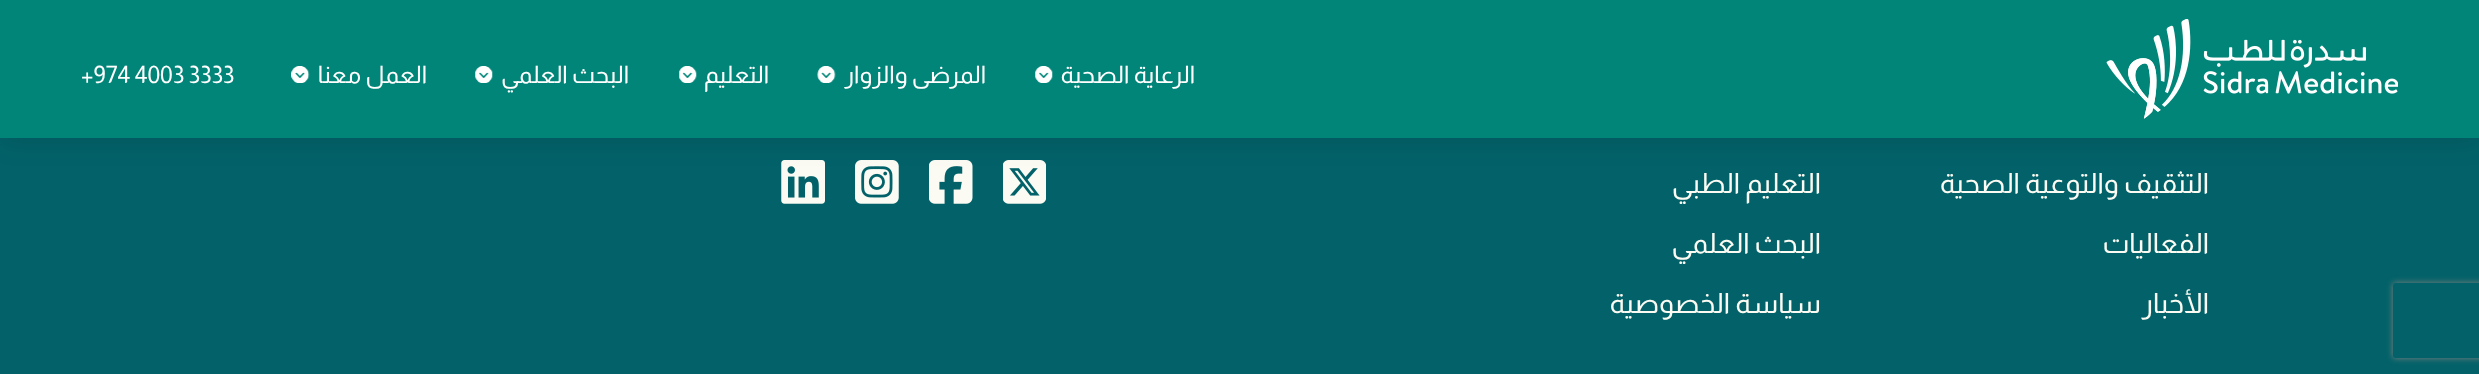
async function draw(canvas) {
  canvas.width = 2479
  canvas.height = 374
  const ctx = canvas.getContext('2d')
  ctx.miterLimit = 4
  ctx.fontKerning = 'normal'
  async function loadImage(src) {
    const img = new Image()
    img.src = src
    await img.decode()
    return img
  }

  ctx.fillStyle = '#036269'
  ctx.fillRect(0, 0, 2479, 374)
  ctx.drawImage(await loadImage('image5.png'), 1003, 160, 43, 44)
  ctx.drawImage(await loadImage('image6.png'), 929, 160, 44, 44)
  ctx.drawImage(await loadImage('image7.png'), 855, 160, 44, 44)
  ctx.drawImage(await loadImage('image8.png'), 781, 160, 44, 44)
  ctx.fillStyle = '#0000001a'
  ctx.filter = 'blur(12.5px)'
  ctx.beginPath()
  ctx.rect(0, 5, 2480, 138)
  ctx.fill()
  ctx.filter = 'none'
  ctx.fillStyle = '#008578'
  ctx.fillRect(0, 0, 2479, 138)
  ctx.drawImage(await loadImage('image0.png'), 2106, 19, 292, 100)
  ctx.direction = 'rtl'
  ctx.font = '24px Almarai'
  ctx.fillStyle = '#fff'
  ctx.fillText('الرعاية الصحية', 1195, 83)
  ctx.drawImage(await loadImage('image1.png'), 1035, 66, 18, 17)
  ctx.fillText('المرضى والزوار', 986, 83)
  ctx.drawImage(await loadImage('image2.png'), 817, 66, 19, 17)
  ctx.fillText('التعليم', 769, 83)
  ctx.drawImage(await loadImage('image3.png'), 679, 66, 18, 17)
  ctx.fillText('البحث العلمي', 629, 83)
  ctx.drawImage(await loadImage('image1.png'), 475, 66, 18, 17)
  ctx.fillText('العمل معنا', 427, 83)
  ctx.drawImage(await loadImage('image4.png'), 291, 66, 19, 17)
  ctx.direction = 'ltr'
  ctx.fillText('+974 4003 3333', 81, 83)
  ctx.save()
  ctx.beginPath()
  ctx.moveTo(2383, 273)
  ctx.lineTo(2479, 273)
  ctx.lineTo(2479, 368)
  ctx.lineTo(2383, 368)
  ctx.closePath()
  ctx.moveTo(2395.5, 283)
  ctx.lineTo(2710.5, 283)
  ctx.bezierCurveTo(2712, 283, 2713, 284, 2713, 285.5)
  ctx.lineTo(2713, 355.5)
  ctx.bezierCurveTo(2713, 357, 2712, 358, 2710.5, 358)
  ctx.lineTo(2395.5, 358)
  ctx.bezierCurveTo(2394, 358, 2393, 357, 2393, 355.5)
  ctx.lineTo(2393, 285.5)
  ctx.bezierCurveTo(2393, 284, 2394, 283, 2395.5, 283)
  ctx.closePath()
  ctx.clip('evenodd')
  ctx.fillStyle = '#808080'
  ctx.filter = 'blur(3px)'
  ctx.beginPath()
  ctx.roundRect(2393, 283, 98, 75, 2.5)
  ctx.fill()
  ctx.filter = 'none'
  ctx.restore()
  ctx.direction = 'rtl'
  ctx.font = '28px Almarai'
  ctx.fillStyle = '#fbfbf3'
  ctx.fillText('التثقيف والتوعية الصحية', 2209, 193)
  ctx.fillText('الفعاليات', 2209, 253)
  ctx.fillText('الأخبار', 2209, 313)
  ctx.fillText('التعليم الطبي', 1821, 193)
  ctx.fillText('البحث العلمي', 1821, 253)
  ctx.fillText('سياسة الخصوصية', 1821, 313)
}

draw(document.querySelector('canvas'))
